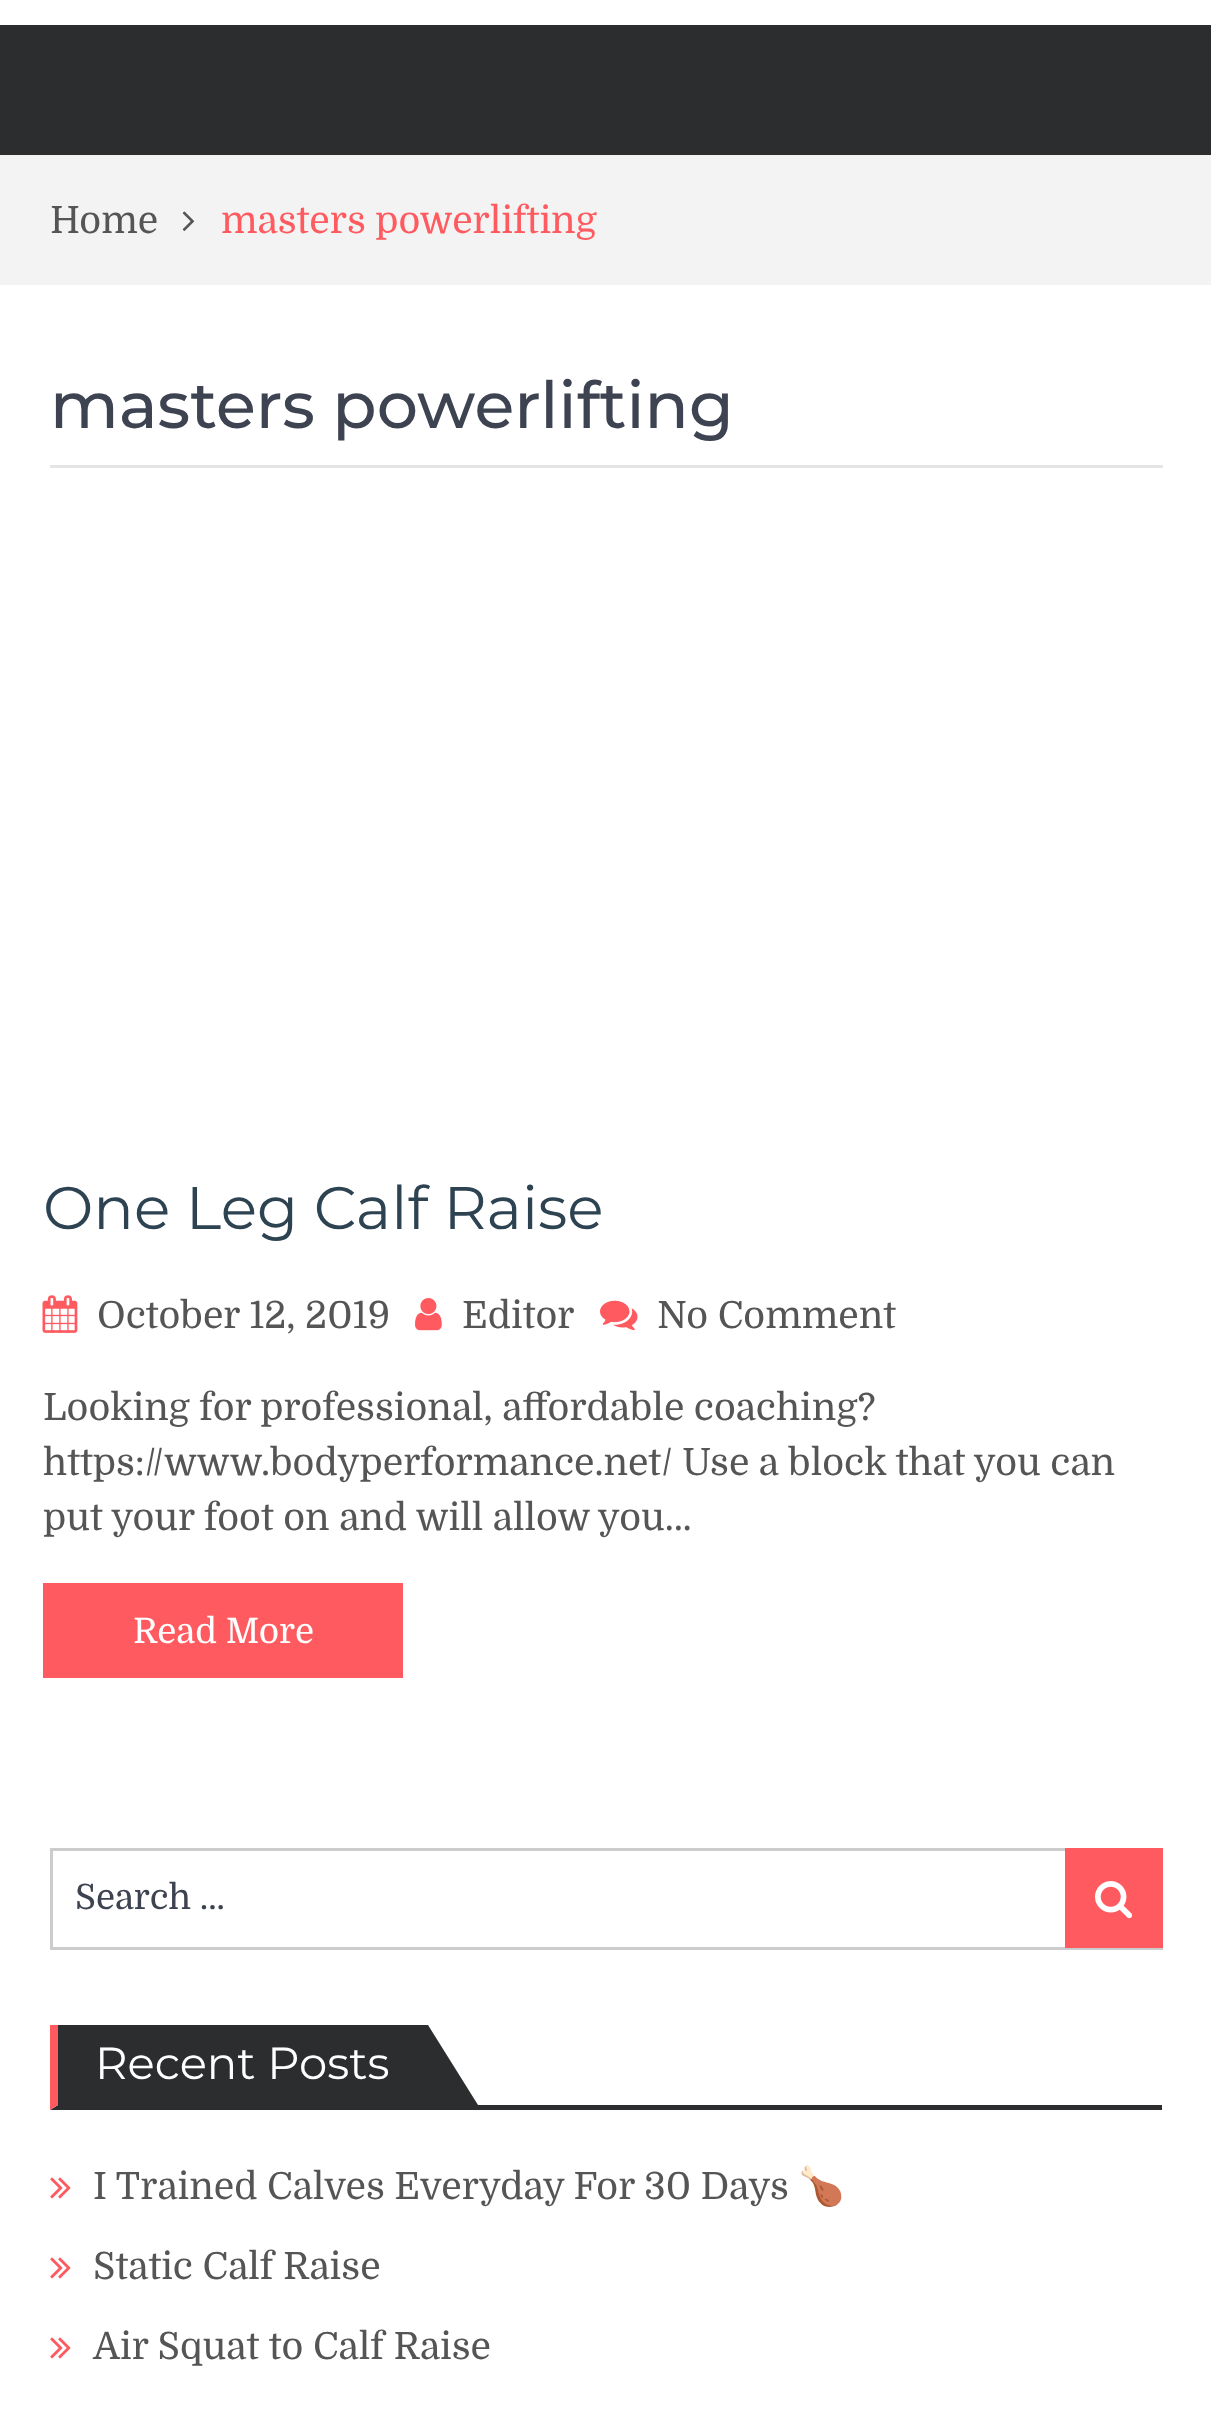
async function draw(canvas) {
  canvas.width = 1211
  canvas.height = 2414
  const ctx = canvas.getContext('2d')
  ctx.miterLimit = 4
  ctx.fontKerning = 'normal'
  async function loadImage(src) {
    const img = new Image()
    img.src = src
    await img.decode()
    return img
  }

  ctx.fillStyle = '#fff'
  ctx.fillRect(0, 0, 1211, 2414)
  ctx.fillStyle = '#2b2d2e'
  ctx.fillRect(0, 25, 1211, 130)
  ctx.fillStyle = '#f3f3f3'
  ctx.fillRect(0, 155, 1211, 130)
  ctx.font = '37.5px Domine'
  ctx.fillStyle = '#555'
  ctx.fillText('Home', 50, 233)
  ctx.drawImage(await loadImage('image0.png'), 182, 211, 13, 20)
  ctx.fillStyle = '#ff5a5f'
  ctx.fillText('masters powerlifting', 221, 233)
  ctx.fillStyle = '#e5e5e5'
  ctx.fillRect(50, 465, 1113, 3)
  ctx.font = '500 65px Montserrat'
  ctx.fillStyle = '#3d4351'
  ctx.fillText('masters powerlifting', 50, 428)
  ctx.font = '60px Montserrat'
  ctx.fillStyle = '#2d4351'
  ctx.fillText('One Leg Calf Raise', 43, 1229)
  ctx.drawImage(await loadImage('image1.png'), 42, 1295, 36, 38)
  ctx.font = '37.5px Domine'
  ctx.fillStyle = '#555'
  ctx.fillText('October 12, 2019', 97, 1328)
  ctx.drawImage(await loadImage('image2.png'), 415, 1298, 27, 33)
  ctx.fillText('Editor', 462, 1328)
  ctx.drawImage(await loadImage('image3.png'), 600, 1300, 38, 31)
  ctx.fillText('No Comment', 657, 1328)
  ctx.fillText('Looking for professional, affordable coaching?', 43, 1420)
  ctx.fillText('https://www.bodyperformance.net/ Use a block that you can', 43, 1475)
  ctx.fillText('put your foot on and will allow you…', 43, 1530)
  ctx.fillStyle = '#ff5a5f'
  ctx.fillRect(43, 1583, 360, 95)
  ctx.font = '35px Domine'
  ctx.fillStyle = '#fff'
  ctx.fillText('Read More', 133, 1643)
  ctx.strokeStyle = '#ccc'
  ctx.lineWidth = 3
  ctx.strokeRect(51.5, 1849.5, 1110, 99)
  ctx.fillStyle = '#3d4351'
  ctx.fillText('Search …', 75, 1909)
  ctx.fillStyle = '#ff5a5f'
  ctx.fillRect(1065, 1848, 98, 100)
  ctx.drawImage(await loadImage('image4.png'), 1095, 1881, 38, 38)
  ctx.fillStyle = '#2b2d2e'
  ctx.beginPath()
  ctx.moveTo(1162, 2110)
  ctx.lineTo(50, 2110)
  ctx.lineTo(58, 2105)
  ctx.lineTo(1162, 2105)
  ctx.closePath()
  ctx.fill()
  ctx.fillStyle = '#ff5a5f'
  ctx.beginPath()
  ctx.moveTo(50, 2110)
  ctx.lineTo(50, 2025)
  ctx.lineTo(58, 2025)
  ctx.lineTo(58, 2105)
  ctx.closePath()
  ctx.fill()
  ctx.fillStyle = '#2b2d2e'
  ctx.fillRect(58, 2025, 370, 80)
  ctx.font = '45px Montserrat'
  ctx.fillStyle = '#fff'
  ctx.fillText('Recent Posts', 95, 2079)
  ctx.fillStyle = '#2b2d2e'
  ctx.beginPath()
  ctx.moveTo(478, 2105)
  ctx.lineTo(428, 2105)
  ctx.lineTo(428, 2025)
  ctx.closePath()
  ctx.fill()
  ctx.drawImage(await loadImage('image5.png'), 50, 2177, 21, 22)
  ctx.font = '37.5px Domine'
  ctx.fillStyle = '#555'
  ctx.fillText('I Trained Calves Everyday For 30 Days', 93, 2199)
  ctx.font = '37.5px Noto Color Emoji'
  ctx.fillText('🍗', 798, 2199)
  ctx.drawImage(await loadImage('image5.png'), 50, 2257, 21, 22)
  ctx.font = '37.5px Domine'
  ctx.fillText('Static Calf Raise', 93, 2279)
  ctx.drawImage(await loadImage('image5.png'), 50, 2337, 21, 22)
  ctx.fillText('Air Squat to Calf Raise', 93, 2359)
}

draw(document.querySelector('canvas'))
